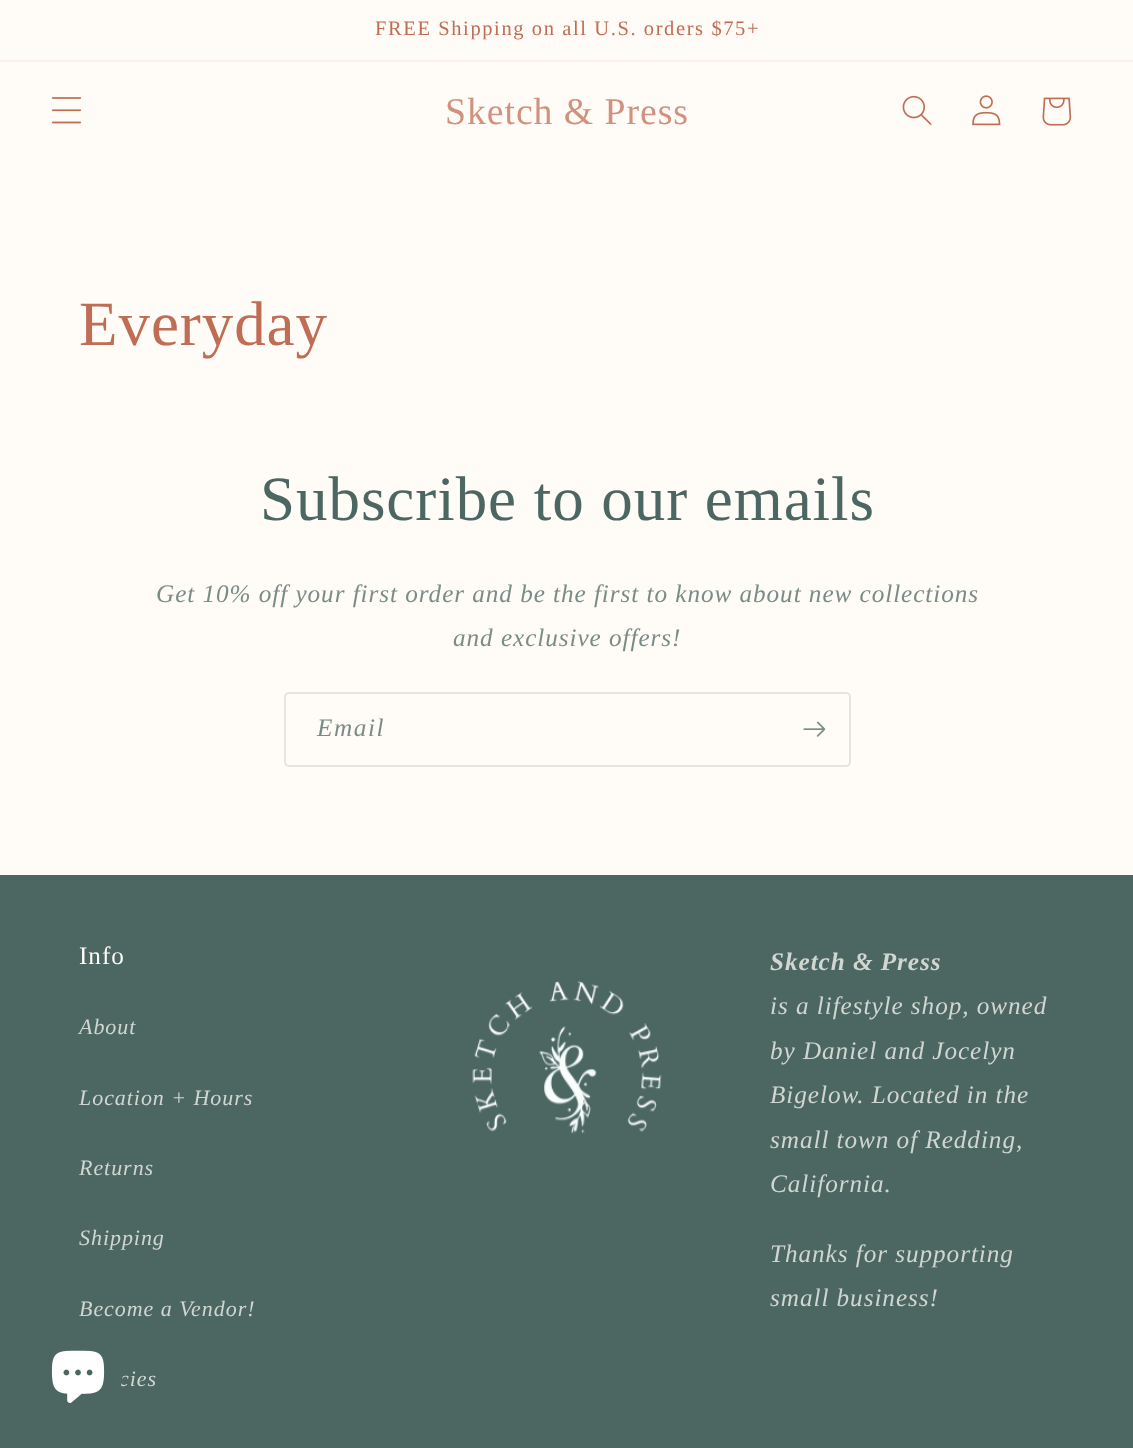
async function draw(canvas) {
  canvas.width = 1133
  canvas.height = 1448
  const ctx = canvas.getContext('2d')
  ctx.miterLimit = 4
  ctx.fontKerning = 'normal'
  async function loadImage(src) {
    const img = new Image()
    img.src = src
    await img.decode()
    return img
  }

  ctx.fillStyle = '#fffbf6'
  ctx.fillRect(0, 0, 1133, 1448)
  ctx.fillStyle = '#faf0e9'
  ctx.fillRect(0, 60, 1133, 2)
  ctx.letterSpacing = '1.6px'
  ctx.font = '20.5px Liberation Serif'
  ctx.fillStyle = '#c06d55'
  ctx.fillText('FREE Shipping on all U.S. orders $75+', 375, 35)
  ctx.drawImage(await loadImage('image0.png'), 51, 97, 31, 27)
  ctx.letterSpacing = '0.95px'
  ctx.font = '37.75px Liberation Serif'
  ctx.fillStyle = '#d0917d'
  ctx.fillText('Sketch & Press', 445, 124)
  ctx.drawImage(await loadImage('image1.png'), 902, 95, 30, 30)
  ctx.drawImage(await loadImage('image2.png'), 972, 95, 29, 31)
  ctx.drawImage(await loadImage('image3.png'), 1042, 97, 30, 29)
  ctx.font = '63px Liberation Serif'
  ctx.fillStyle = '#c06d55'
  ctx.fillText('Everyday', 79, 345)
  ctx.fillStyle = '#4c6762'
  ctx.fillText('Subscribe to our emails', 260, 520)
  ctx.font = 'italic 25.2px Liberation Serif'
  ctx.fillStyle = '#798c87'
  ctx.fillText('Get 10% off your first order and be the first to know about new collections', 156, 602)
  ctx.fillText('and exclusive offers!', 453, 646)
  ctx.beginPath()
  ctx.roundRect(285, 693, 565, 73, 4)
  ctx.strokeStyle = '#4c676226'
  ctx.lineWidth = 2
  ctx.stroke()
  ctx.letterSpacing = '1.6px'
  ctx.fillText('Email', 317, 736)
  ctx.drawImage(await loadImage('image4.png'), 803, 721, 23, 16)
  ctx.fillStyle = '#4c6762'
  ctx.fillRect(0, 875, 1133, 573)
  ctx.letterSpacing = '0.95px'
  ctx.font = '25.2px Liberation Serif'
  ctx.fillStyle = '#fffbf6'
  ctx.fillText('Info', 79, 964)
  ctx.font = 'italic 22px Liberation Serif'
  ctx.fillStyle = '#d2d6d1'
  ctx.fillText('About', 79, 1034)
  ctx.fillText('Location + Hours', 79, 1105)
  ctx.fillText('Returns', 79, 1175)
  ctx.fillText('Shipping', 79, 1245)
  ctx.fillText('Become a Vendor!', 79, 1316)
  ctx.fillText('cies', 119, 1386)
  ctx.drawImage(await loadImage('image5.png'), 472, 980, 190, 154)
  ctx.font = 'italic bold 25.2px Liberation Serif'
  ctx.fillText('Sketch & Press', 770, 970)
  ctx.font = 'italic 25.2px Liberation Serif'
  ctx.fillText('is a lifestyle shop, owned', 770, 1014)
  ctx.fillText('by Daniel and Jocelyn', 770, 1059)
  ctx.fillText('Bigelow. Located in the', 770, 1103)
  ctx.fillText('small town of Redding,', 770, 1148)
  ctx.fillText('California.', 770, 1192)
  ctx.fillText('Thanks for supporting', 770, 1262)
  ctx.fillText('small business!', 770, 1306)
  ctx.fillStyle = '#4c6762'
  ctx.beginPath()
  ctx.arc(78, 1373, 45, 0, 2 * Math.PI)
  ctx.fill()
  ctx.drawImage(await loadImage('image6.png'), 51, 1350, 54, 53)
}

draw(document.querySelector('canvas'))
